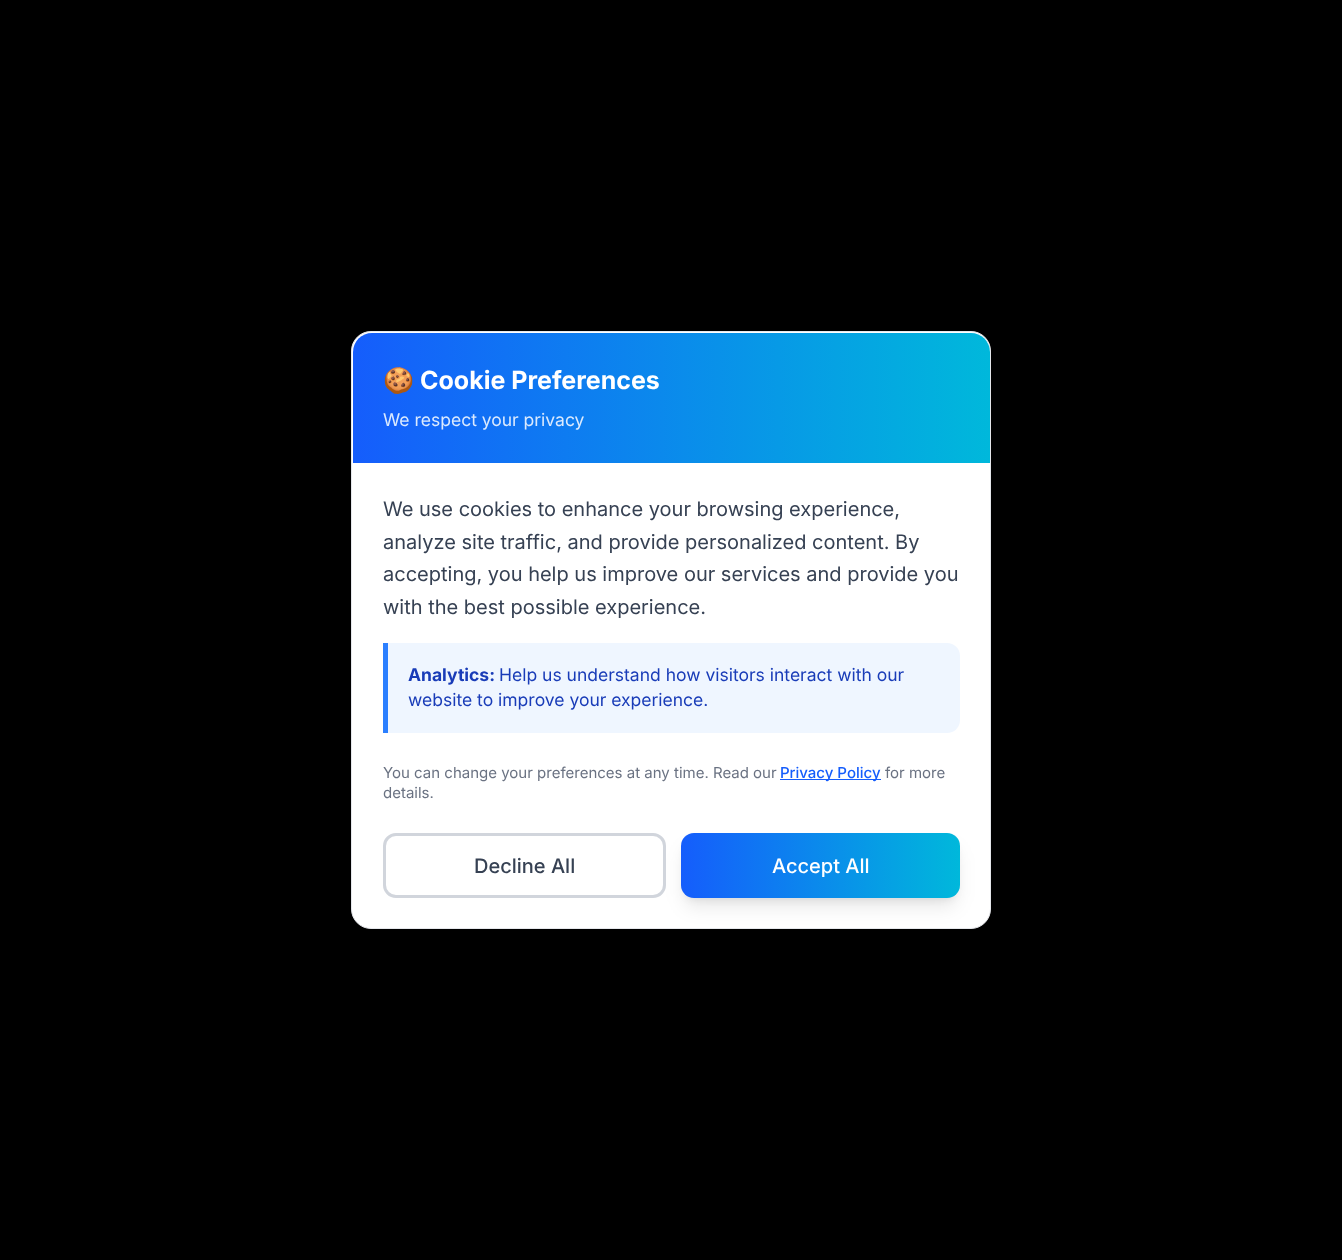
async function draw(canvas) {
  canvas.width = 1342
  canvas.height = 1260
  const ctx = canvas.getContext('2d')
  ctx.miterLimit = 4
  ctx.fontKerning = 'normal'
  let gradient

  ctx.fillStyle = '#000'
  ctx.fillRect(0, 0, 1342, 1260)
  ctx.fillStyle = '#fff'
  ctx.beginPath()
  ctx.roundRect(351.5, 331.5, 639, 597, 19.5)
  ctx.fill()
  ctx.strokeStyle = '#e5e7eb'
  ctx.stroke()
  gradient = ctx.createLinearGradient(353, 398, 990, 398)
  gradient.addColorStop(0, '#155dfc')
  gradient.addColorStop(1, '#00b8db')
  ctx.fillStyle = gradient
  ctx.beginPath()
  ctx.roundRect(353, 333, 637, 130, [19, 19, 0, 0])
  ctx.fill()
  ctx.font = 'bold 25px Noto Color Emoji'
  ctx.fillStyle = '#fff'
  ctx.fillText('🍪', 383, 389)
  ctx.font = 'bold 25px Inter'
  ctx.fillText('Cookie Preferences', 420, 389)
  ctx.font = '17.5px Inter'
  ctx.fillStyle = '#dbeafe'
  ctx.fillText('We respect your privacy', 383, 426)
  ctx.font = '20px Inter'
  ctx.fillStyle = '#364153'
  ctx.fillText('We use cookies to enhance your browsing experience,', 383, 516)
  ctx.fillText('analyze site traffic, and provide personalized content. By', 383, 549)
  ctx.fillText('accepting, you help us improve our services and provide you', 383, 581)
  ctx.fillText('with the best possible experience.', 383, 614)
  ctx.fillStyle = '#eff6ff'
  ctx.beginPath()
  ctx.roundRect(388, 643, 572, 90, [0, 13, 13, 0])
  ctx.fill()
  ctx.fillStyle = '#2b7fff'
  ctx.fillRect(383, 643, 5, 90)
  ctx.font = 'bold 17.5px Inter'
  ctx.fillStyle = '#193cb8'
  ctx.fillText('Analytics:', 408, 681)
  ctx.font = '17.5px Inter'
  ctx.fillText('Help us understand how visitors interact with our', 499, 681)
  ctx.fillText('website to improve your experience.', 408, 706)
  ctx.font = '15px Inter'
  ctx.fillStyle = '#6a7282'
  ctx.fillText('You can change your preferences at any time. Read our', 383, 778)
  ctx.fillStyle = '#155dfc'
  ctx.fillRect(780, 779, 101, 1)
  ctx.font = '500 15px Inter'
  ctx.fillText('Privacy Policy', 780, 778)
  ctx.font = '15px Inter'
  ctx.fillStyle = '#6a7282'
  ctx.fillText('for more', 885, 778)
  ctx.fillText('details.', 383, 798)
  ctx.beginPath()
  ctx.roundRect(384.5, 834.5, 280, 62, 11.5)
  ctx.strokeStyle = '#d1d5dc'
  ctx.lineWidth = 3
  ctx.stroke()
  ctx.font = '500 20px Inter'
  ctx.fillStyle = '#364153'
  ctx.fillText('Decline All', 474, 873)
  ctx.fillStyle = '#0000001a'
  ctx.filter = 'blur(4px)'
  ctx.beginPath()
  ctx.roundRect(686, 843, 269, 55, 8)
  ctx.fill()
  ctx.filter = 'none'
  ctx.filter = 'blur(9.5px)'
  ctx.beginPath()
  ctx.roundRect(685, 849, 271, 57, 9)
  ctx.fill()
  ctx.filter = 'none'
  gradient = ctx.createLinearGradient(681, 865, 960, 865)
  gradient.addColorStop(0, '#155dfc')
  gradient.addColorStop(1, '#00b8db')
  ctx.fillStyle = gradient
  ctx.beginPath()
  ctx.roundRect(681, 833, 279, 65, 13)
  ctx.fill()
  ctx.fillStyle = '#fff'
  ctx.fillText('Accept All', 772, 873)
}

draw(document.querySelector('canvas'))
